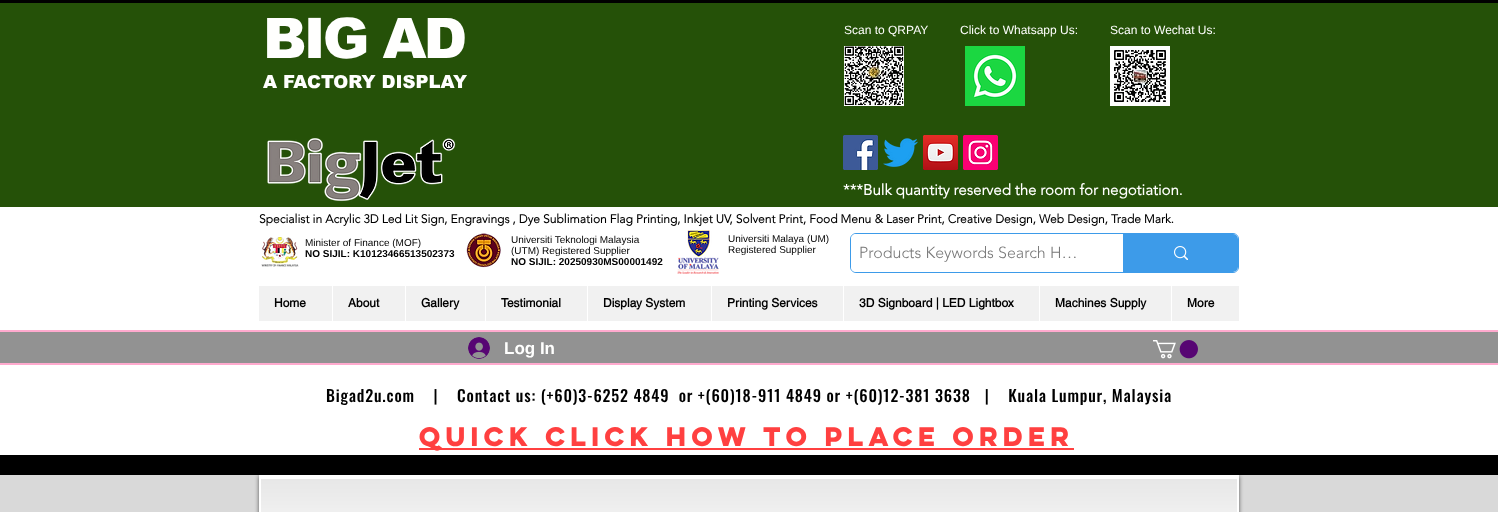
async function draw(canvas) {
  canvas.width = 1498
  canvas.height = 512
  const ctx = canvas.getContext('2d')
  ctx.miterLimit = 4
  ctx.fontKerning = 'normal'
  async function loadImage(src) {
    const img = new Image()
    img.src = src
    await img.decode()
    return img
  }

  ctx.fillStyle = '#d9d9d9'
  ctx.fillRect(0, 0, 1498, 512)
  ctx.fillStyle = '#000'
  ctx.fillRect(0, 0, 1498, 475)
  ctx.fillStyle = '#255108'
  ctx.fillRect(0, 3, 1498, 204)
  ctx.letterSpacing = '-2.75px'
  ctx.font = '900 56px arial'
  ctx.fillStyle = '#fffffe'
  ctx.fillText('BIG AD', 263, 58)
  ctx.letterSpacing = '0px'
  ctx.font = '900 18px arial'
  ctx.fillText('A FACTORY DISPLAY', 263, 88)
  ctx.font = '12px Liberation Sans'
  ctx.fillText('Scan to QRPAY', 844, 34)
  ctx.fillText('Click to Whatsapp Us:', 960, 34)
  ctx.fillText('Scan to Wechat Us:', 1110, 34)
  ctx.drawImage(await loadImage('image0.png'), 844, 46, 60, 60)
  ctx.drawImage(await loadImage('image1.png'), 965, 46, 60, 60)
  ctx.drawImage(await loadImage('image2.png'), 1110, 46, 60, 60)
  ctx.drawImage(await loadImage('image3.png'), 267, 138, 189, 64)
  ctx.drawImage(await loadImage('image4.png'), 843, 135, 35, 35)
  ctx.drawImage(await loadImage('image5.png'), 883, 138, 35, 29)
  ctx.drawImage(await loadImage('image6.png'), 923, 135, 35, 35)
  ctx.drawImage(await loadImage('image7.png'), 963, 135, 35, 35)
  ctx.font = 'bold 15px "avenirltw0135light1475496"'
  ctx.fillText('***Bulk quantity reserved the room for negotiation.', 843, 195)
  ctx.fillStyle = '#fff'
  ctx.fillRect(0, 207, 1498, 248)
  ctx.font = 'bold 12px "avenirltw0135light1475496"'
  ctx.fillStyle = '#000'
  ctx.fillText('Specialist in Acrylic 3D Led Lit Sign, Engravings , Dye Sublimation Flag Printing, Inkjet UV, Solvent Print, Food Menu & Laser Print, Creative Design, Web Design, Trade Mark.', 259, 223)
  ctx.drawImage(await loadImage('image8.png'), 261, 237, 38, 30)
  ctx.font = '10px Liberation Sans'
  ctx.fillText('Minister of Finance (MOF)', 305, 246)
  ctx.font = 'bold 10px Liberation Sans'
  ctx.fillText('NO SIJIL: K10123466513502373', 305, 257)
  ctx.drawImage(await loadImage('image9.png'), 466, 233, 35, 35)
  ctx.font = '10px Liberation Sans'
  ctx.fillText('Universiti Teknologi Malaysia', 511, 243)
  ctx.fillText('(UTM) Registered Supplier', 511, 254)
  ctx.font = 'bold 10px Liberation Sans'
  ctx.fillText('NO SIJIL: 20250930MS00001492', 511, 265)
  ctx.drawImage(await loadImage('image10.png'), 677, 230, 42, 44)
  ctx.font = '10px Liberation Sans'
  ctx.fillText('Universiti Malaya (UM)', 728, 242)
  ctx.fillText('Registered Supplier', 728, 253)
  ctx.beginPath()
  ctx.roundRect(850.5, 233.5, 388, 39, 5.5)
  ctx.strokeStyle = '#3d9be9'
  ctx.stroke()
  ctx.fillStyle = '#fff'
  ctx.beginPath()
  ctx.roundRect(851, 234, 387, 38, 5)
  ctx.fill()
  ctx.font = '300 16px "avenirltw0135light1475496"'
  ctx.fillStyle = '#787878'
  ctx.fillText('Products Keywords Search H…', 859, 258)
  ctx.fillStyle = '#3d9be9'
  ctx.beginPath()
  ctx.roundRect(1123, 234, 115, 38, [0, 5, 5, 0])
  ctx.fill()
  ctx.drawImage(await loadImage('image11.png'), 1174, 246, 14, 14)
  ctx.fillStyle = '#f1f1f1'
  ctx.fillRect(259, 286, 980, 35)
  ctx.font = 'bold 12px helvetica'
  ctx.fillStyle = '#000'
  ctx.fillText('Home', 274, 307)
  ctx.fillStyle = '#fff'
  ctx.fillRect(332, 286, 1, 35)
  ctx.fillStyle = '#000'
  ctx.fillText('About', 348, 307)
  ctx.fillStyle = '#fff'
  ctx.fillRect(405, 286, 1, 35)
  ctx.fillStyle = '#000'
  ctx.fillText('Gallery', 421, 307)
  ctx.fillStyle = '#fff'
  ctx.fillRect(485, 286, 1, 35)
  ctx.fillStyle = '#000'
  ctx.fillText('Testimonial', 501, 307)
  ctx.fillStyle = '#fff'
  ctx.fillRect(587, 286, 1, 35)
  ctx.fillStyle = '#000'
  ctx.fillText('Display System', 603, 307)
  ctx.fillStyle = '#fff'
  ctx.fillRect(711, 286, 1, 35)
  ctx.fillStyle = '#000'
  ctx.fillText('Printing Services', 727, 307)
  ctx.fillStyle = '#fff'
  ctx.fillRect(843, 286, 1, 35)
  ctx.fillStyle = '#000'
  ctx.fillText('3D Signboard | LED Lightbox', 859, 307)
  ctx.fillStyle = '#fff'
  ctx.fillRect(1039, 286, 1, 35)
  ctx.fillStyle = '#000'
  ctx.fillText('Machines Supply', 1055, 307)
  ctx.fillStyle = '#fff'
  ctx.fillRect(1171, 286, 1, 35)
  ctx.fillStyle = '#000'
  ctx.fillText('More', 1187, 307)
  ctx.fillStyle = '#929292'
  ctx.beginPath()
  ctx.rect(-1, 331, 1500, 33)
  ctx.fill()
  ctx.strokeStyle = '#ffaace'
  ctx.lineWidth = 2
  ctx.stroke()
  ctx.drawImage(await loadImage('image12.png'), 1153, 340, 45, 19)
  ctx.drawImage(await loadImage('image13.png'), 468, 337, 22, 22)
  ctx.font = 'bold 17px Liberation Sans'
  ctx.fillStyle = '#fffffe'
  ctx.fillText('Log In', 504, 354)
  ctx.letterSpacing = '0.8px'
  ctx.font = '500 16px Oswald'
  ctx.fillStyle = '#000'
  ctx.fillText('Bigad2u.com    |    Contact us: (+60)3-6252 4849  or +(60)18-911 4849 or +(60)12-381 3638   |    Kuala Lumpur, Malaysia', 326, 402)
  ctx.fillStyle = '#ff4040'
  ctx.fillRect(419, 448, 655, 2)
  ctx.letterSpacing = '0px'
  ctx.font = 'bold 24px "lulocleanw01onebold"'
  ctx.fillText('QUICK CLICK how to Place Order', 419, 446)
  ctx.fillStyle = '#00000099'
  ctx.filter = 'blur(2px)'
  ctx.beginPath()
  ctx.rect(259, 476, 980, 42)
  ctx.fill()
  ctx.filter = 'none'
  ctx.fillStyle = '#fff'
  ctx.fillRect(261, 477, 976, 35)
  ctx.drawImage(await loadImage('image14.png'), 261, 479, 976, 33)
  ctx.strokeStyle = '#fff'
  ctx.strokeRect(260, 476, 978, 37)
}

draw(document.querySelector('canvas'))
